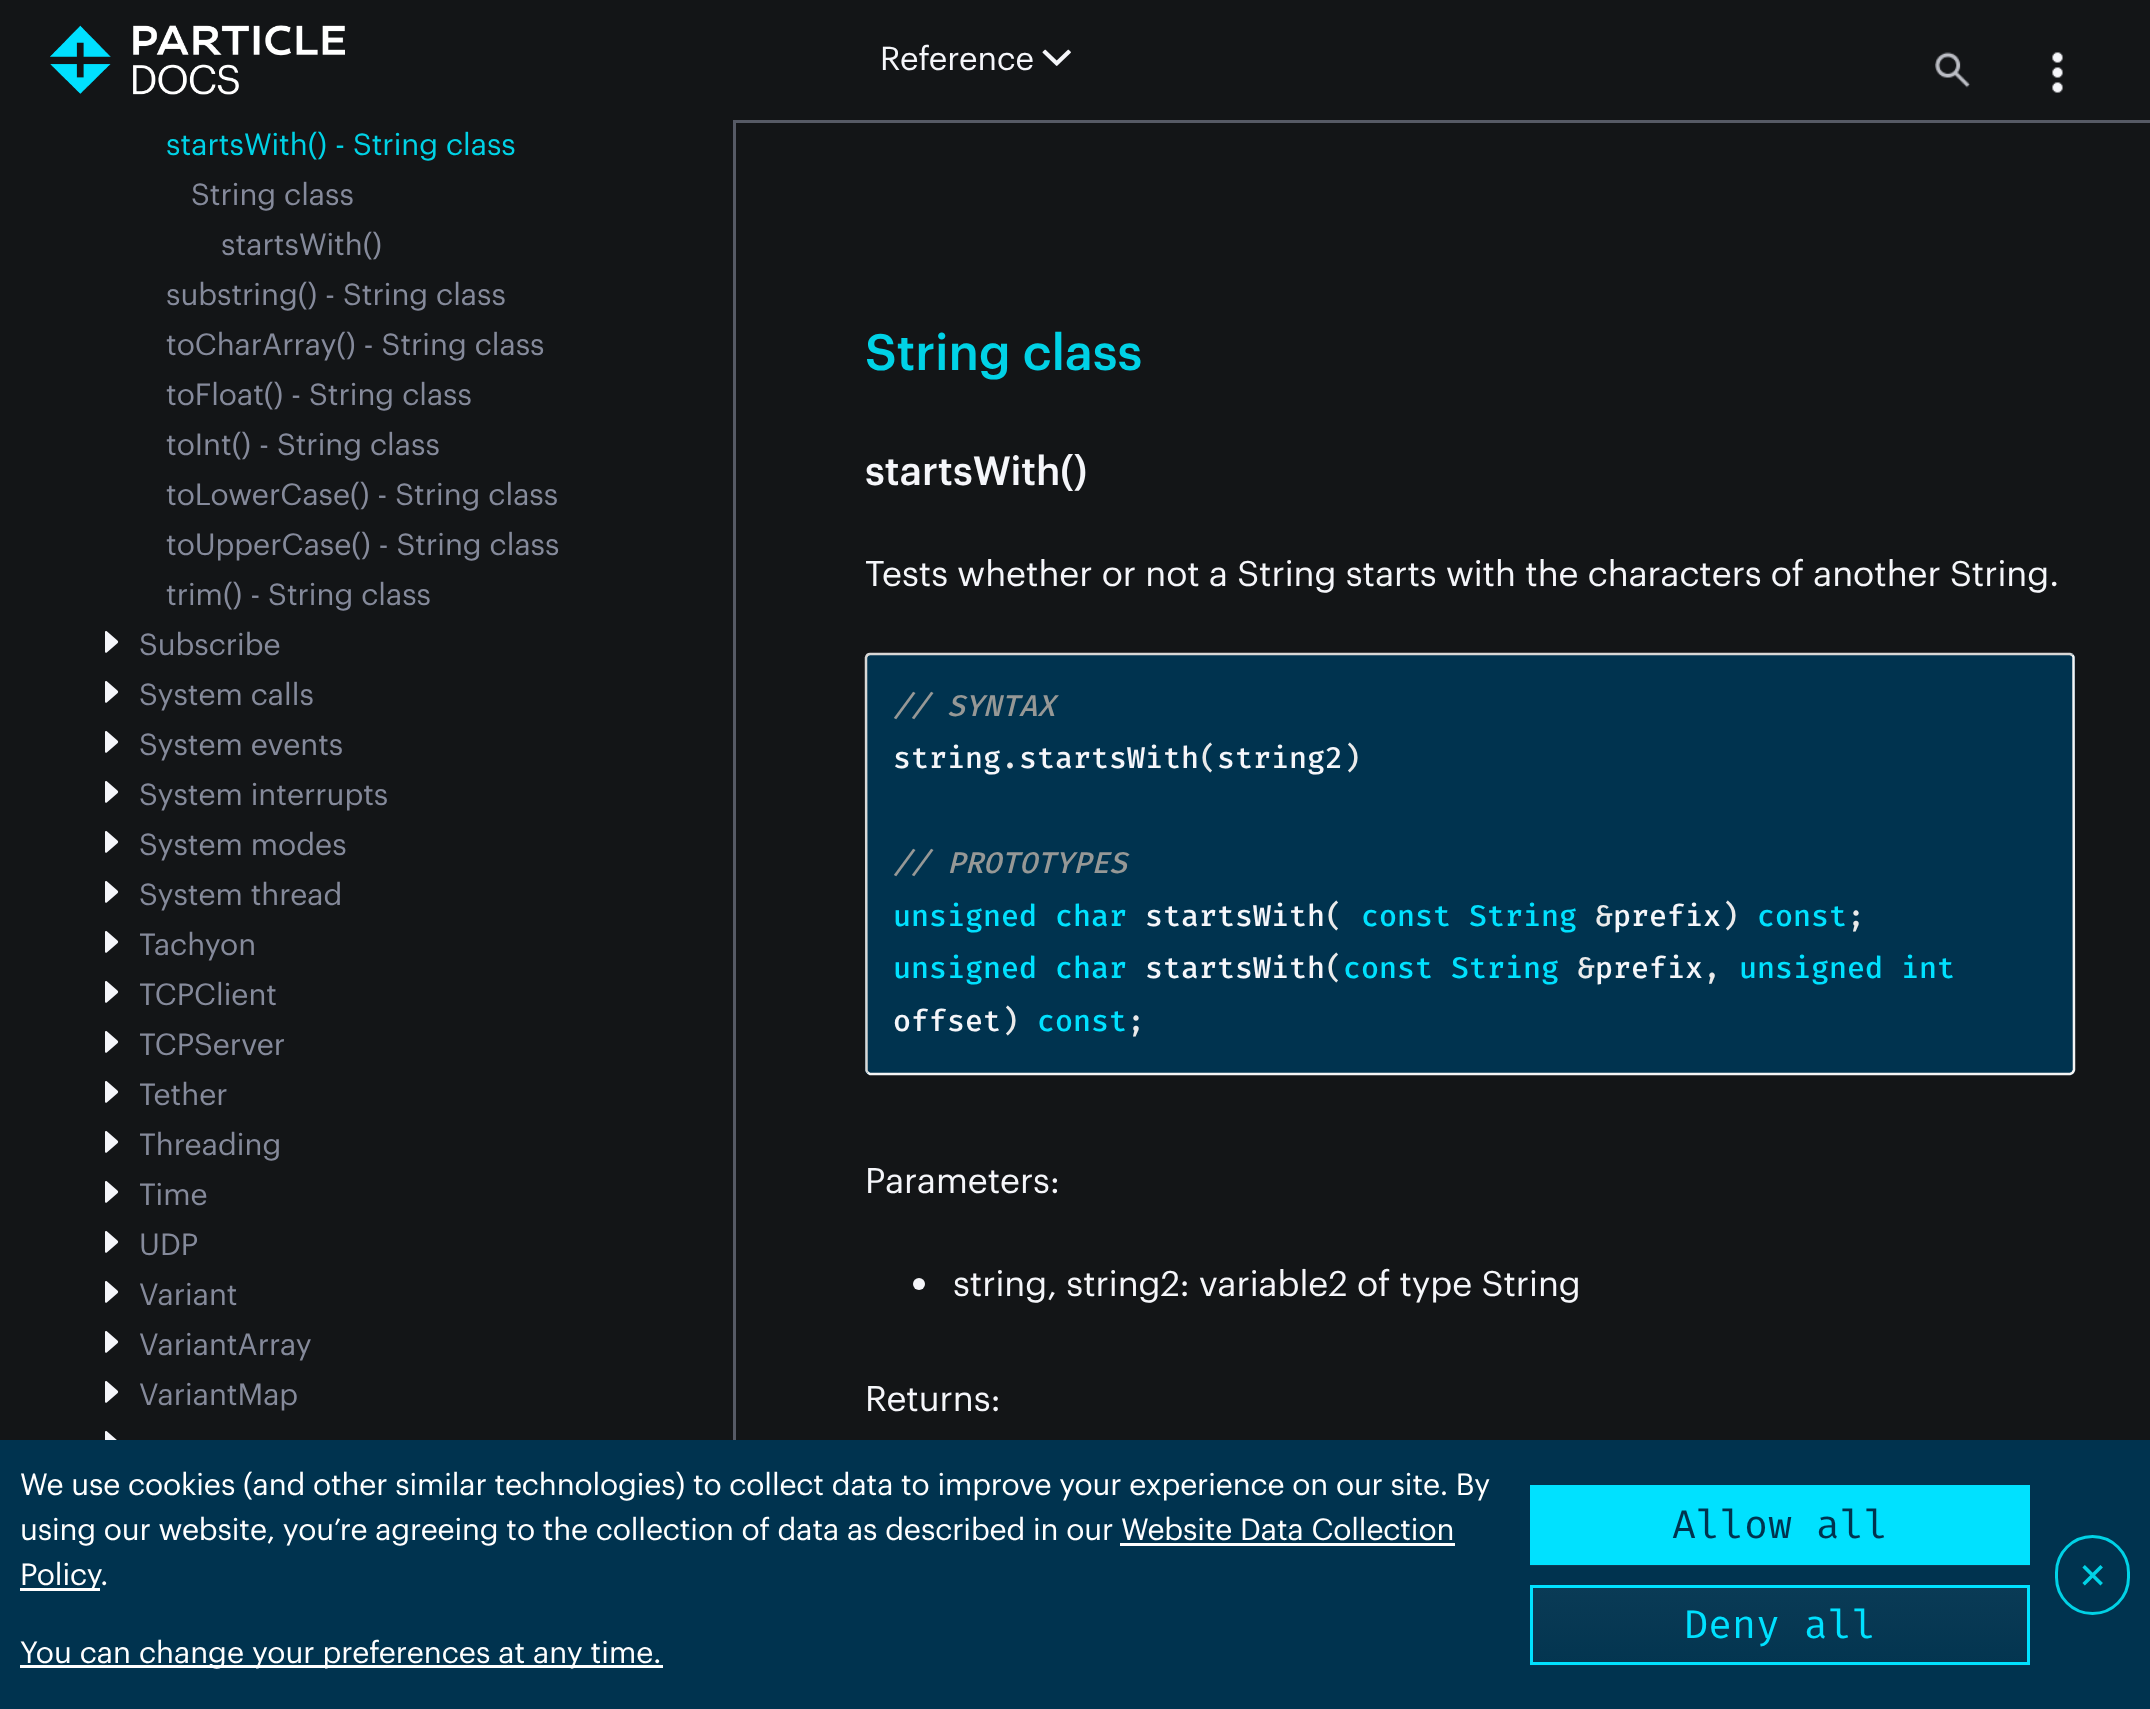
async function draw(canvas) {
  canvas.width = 2150
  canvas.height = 1709
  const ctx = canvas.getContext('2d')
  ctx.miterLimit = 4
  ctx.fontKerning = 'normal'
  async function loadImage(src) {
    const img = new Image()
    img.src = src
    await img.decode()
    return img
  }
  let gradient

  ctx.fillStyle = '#131517'
  ctx.fillRect(0, 0, 2150, 1709)
  ctx.drawImage(await loadImage('image0.png'), 50, 25, 295, 70)
  ctx.fillStyle = '#565a65'
  ctx.fillRect(733, 120, 3, 1320)
  ctx.fillRect(735, 120, 1415, 3)
  ctx.font = '32.5px Graphik'
  ctx.fillStyle = '#f5f6fa'
  ctx.fillText('Reference', 880, 70)
  ctx.drawImage(await loadImage('image1.png'), 1042, 49, 29, 17)
  ctx.drawImage(await loadImage('image2.png'), 1935, 52, 35, 36)
  ctx.drawImage(await loadImage('image3.png'), 2052, 52, 11, 41)
  ctx.font = '30px Graphik'
  ctx.fillStyle = '#00d2e6'
  ctx.fillText('startsWith() - String class', 166, 155)
  ctx.fillStyle = '#858a9b'
  ctx.fillText('String class', 191, 205)
  ctx.fillText('startsWith()', 221, 255)
  ctx.fillText('substring() - String class', 166, 305)
  ctx.fillText('toCharArray() - String class', 166, 355)
  ctx.fillText('toFloat() - String class', 166, 405)
  ctx.fillText('toInt() - String class', 166, 455)
  ctx.fillText('toLowerCase() - String class', 166, 505)
  ctx.fillText('toUpperCase() - String class', 166, 555)
  ctx.fillText('trim() - String class', 166, 605)
  ctx.drawImage(await loadImage('image4.png'), 105, 631, 14, 22)
  ctx.fillText('Subscribe', 139, 655)
  ctx.drawImage(await loadImage('image4.png'), 105, 681, 14, 22)
  ctx.fillText('System calls', 139, 705)
  ctx.drawImage(await loadImage('image4.png'), 105, 731, 14, 22)
  ctx.fillText('System events', 139, 755)
  ctx.drawImage(await loadImage('image4.png'), 105, 781, 14, 22)
  ctx.fillText('System interrupts', 139, 805)
  ctx.drawImage(await loadImage('image4.png'), 105, 831, 14, 22)
  ctx.fillText('System modes', 139, 855)
  ctx.drawImage(await loadImage('image4.png'), 105, 881, 14, 22)
  ctx.fillText('System thread', 139, 905)
  ctx.drawImage(await loadImage('image4.png'), 105, 931, 14, 22)
  ctx.save()
  ctx.beginPath()
  ctx.rect(140, 920, 543, 50)
  ctx.clip()
  ctx.fillText('Tachyon', 139, 955)
  ctx.restore()
  ctx.drawImage(await loadImage('image4.png'), 105, 981, 14, 22)
  ctx.save()
  ctx.beginPath()
  ctx.rect(140, 970, 543, 50)
  ctx.clip()
  ctx.fillText('TCPClient', 139, 1005)
  ctx.restore()
  ctx.drawImage(await loadImage('image4.png'), 105, 1031, 14, 22)
  ctx.save()
  ctx.beginPath()
  ctx.rect(140, 1020, 543, 50)
  ctx.clip()
  ctx.fillText('TCPServer', 139, 1055)
  ctx.restore()
  ctx.drawImage(await loadImage('image4.png'), 105, 1081, 14, 22)
  ctx.save()
  ctx.beginPath()
  ctx.rect(140, 1070, 543, 50)
  ctx.clip()
  ctx.fillText('Tether', 139, 1105)
  ctx.restore()
  ctx.drawImage(await loadImage('image4.png'), 105, 1131, 14, 22)
  ctx.save()
  ctx.beginPath()
  ctx.rect(140, 1120, 543, 50)
  ctx.clip()
  ctx.fillText('Threading', 139, 1155)
  ctx.restore()
  ctx.drawImage(await loadImage('image4.png'), 105, 1181, 14, 22)
  ctx.save()
  ctx.beginPath()
  ctx.rect(140, 1170, 543, 50)
  ctx.clip()
  ctx.fillText('Time', 139, 1205)
  ctx.restore()
  ctx.drawImage(await loadImage('image4.png'), 105, 1231, 14, 22)
  ctx.fillText('UDP', 139, 1255)
  ctx.drawImage(await loadImage('image4.png'), 105, 1281, 14, 22)
  ctx.fillText('Variant', 139, 1305)
  ctx.drawImage(await loadImage('image4.png'), 105, 1331, 14, 22)
  ctx.fillText('VariantArray', 139, 1355)
  ctx.drawImage(await loadImage('image4.png'), 105, 1381, 14, 22)
  ctx.fillText('VariantMap', 139, 1405)
  ctx.drawImage(await loadImage('image5.png'), 105, 1431, 12, 9)
  ctx.font = '500 50px Graphik'
  ctx.fillStyle = '#00d2e6'
  ctx.fillText('String class', 865, 370)
  ctx.font = '500 40px Graphik'
  ctx.fillStyle = '#f5f6fa'
  ctx.fillText('startsWith()', 865, 485)
  ctx.font = '35px Graphik'
  ctx.fillText('Tests whether or not a String starts with the characters of another String.', 865, 586)
  ctx.fillStyle = '#00334f'
  ctx.beginPath()
  ctx.roundRect(865, 653, 1210, 422, 5)
  ctx.fill()
  ctx.beginPath()
  ctx.moveTo(2072.5, 655)
  ctx.lineTo(2073.5, 657)
  ctx.lineTo(2074, 1070)
  ctx.bezierCurveTo(2073.5, 1072, 2072, 1073.5, 2070, 1074)
  ctx.lineTo(870, 1074)
  ctx.lineTo(867.5, 1072.5)
  ctx.strokeStyle = '#f5f5f5'
  ctx.lineWidth = 2.5
  ctx.stroke()
  ctx.beginPath()
  ctx.moveTo(867.5, 1072.5)
  ctx.lineTo(866.5, 1070.5)
  ctx.lineTo(866, 657.5)
  ctx.bezierCurveTo(866.5, 655.5, 868, 654, 870, 654)
  ctx.lineTo(2070, 654)
  ctx.lineTo(2072.5, 655)
  ctx.strokeStyle = '#d9d8d6'
  ctx.stroke()
  ctx.font = 'italic 500 30px Fira Mono'
  ctx.fillStyle = '#969896'
  ctx.fillText('// SYNTAX', 893, 716)
  ctx.font = '500 30px Fira Mono'
  ctx.fillStyle = '#f5f6fa'
  ctx.fillText('string startsWith string2', 893, 768)
  ctx.fillStyle = '#eaeaea'
  ctx.fillText('(', 1199, 768)
  ctx.fillText(')', 1343, 768)
  ctx.fillText('.', 1001, 768)
  ctx.font = 'italic 500 30px Fira Mono'
  ctx.fillStyle = '#969896'
  ctx.fillText('// PROTOTYPES', 893, 873)
  ctx.font = '500 30px Fira Mono'
  ctx.fillStyle = '#00e1ff'
  ctx.fillText('unsigned char', 893, 926)
  ctx.fillStyle = '#f5f6fa'
  ctx.fillText('startsWith', 1145, 926)
  ctx.fillStyle = '#eaeaea'
  ctx.fillText('(', 1325, 926)
  ctx.fillStyle = '#00e1ff'
  ctx.fillText('const String', 1361, 926)
  ctx.fillStyle = '#eaeaea'
  ctx.fillText('&', 1595, 926)
  ctx.fillStyle = '#f5f6fa'
  ctx.fillText('prefix', 1613, 926)
  ctx.fillStyle = '#eaeaea'
  ctx.fillText(')', 1721, 926)
  ctx.fillStyle = '#00e1ff'
  ctx.fillText('const', 1757, 926)
  ctx.fillStyle = '#eaeaea'
  ctx.fillText(';', 1847, 926)
  ctx.fillStyle = '#00e1ff'
  ctx.fillText('unsigned char', 893, 978)
  ctx.fillStyle = '#f5f6fa'
  ctx.fillText('startsWith', 1145, 978)
  ctx.fillStyle = '#eaeaea'
  ctx.fillText('(', 1325, 978)
  ctx.fillStyle = '#00e1ff'
  ctx.fillText('const String', 1343, 978)
  ctx.fillStyle = '#eaeaea'
  ctx.fillText('&', 1577, 978)
  ctx.fillStyle = '#f5f6fa'
  ctx.fillText('prefix', 1595, 978)
  ctx.fillStyle = '#eaeaea'
  ctx.fillText(',', 1703, 978)
  ctx.fillStyle = '#00e1ff'
  ctx.fillText('unsigned int', 1739, 978)
  ctx.fillStyle = '#f5f6fa'
  ctx.fillText('offset', 893, 1031)
  ctx.fillStyle = '#eaeaea'
  ctx.fillText(')', 1001, 1031)
  ctx.fillStyle = '#00e1ff'
  ctx.fillText('const', 1037, 1031)
  ctx.fillStyle = '#eaeaea'
  ctx.fillText(';', 1127, 1031)
  ctx.font = '35px Graphik'
  ctx.fillStyle = '#f5f6fa'
  ctx.fillText('Parameters:', 865, 1193)
  ctx.beginPath()
  ctx.arc(919, 1284, 6, 0, 2 * Math.PI)
  ctx.fill()
  ctx.fillText('string, string2: variable2 of type String', 953, 1296)
  ctx.fillText('Returns:', 865, 1411)
  ctx.fillStyle = '#00334f'
  ctx.fillRect(0, 1440, 2150, 269)
  ctx.fillStyle = '#053652'
  ctx.fillRect(1530, 1665, 500, 1)
  ctx.fillStyle = '#0d3b55'
  ctx.fillRect(1530, 1565, 500, 1)
  ctx.letterSpacing = '-0.12px'
  ctx.font = '30px Graphik'
  ctx.fillStyle = '#fff'
  ctx.fillText('We use cookies (and other similar technologies) to collect data to improve your experience on our site. By', 20, 1495)
  ctx.fillText('using our website, you’re agreeing to the collection of data as described in our Website Data Collection', 20, 1540)
  ctx.fillRect(1120, 1543, 335, 3)
  ctx.fillRect(20, 1588, 80, 3)
  ctx.fillText('Policy', 20, 1585)
  ctx.fillText('.', 100, 1585)
  ctx.fillRect(20, 1665, 643, 3)
  ctx.letterSpacing = '0px'
  ctx.fillText('You can change your preferences at any time.', 20, 1663)
  ctx.fillStyle = '#00e1ff'
  ctx.fillRect(1535, 1490, 490, 70)
  ctx.strokeStyle = '#00e1ff'
  ctx.lineWidth = 5
  ctx.strokeRect(1532.5, 1487.5, 495, 75)
  ctx.font = '40px Fira Mono'
  ctx.fillStyle = '#00334f'
  ctx.fillText('Allow all', 1672, 1538)
  gradient = ctx.createLinearGradient(1780, 1665, 1780, 1585)
  gradient.addColorStop(0, '#033550')
  gradient.addColorStop(1, '#0a3b56')
  ctx.fillStyle = gradient
  ctx.fillRect(1533, 1588, 494, 74)
  ctx.lineWidth = 3
  ctx.strokeRect(1531.5, 1586.5, 497, 77)
  ctx.fillStyle = '#00e1ff'
  ctx.fillText('Deny all', 1684, 1638)
  ctx.beginPath()
  ctx.roundRect(2056.5, 1536.5, 72, 77, 36)
  ctx.strokeStyle = '#00d2e6'
  ctx.stroke()
  ctx.font = '35px DejaVu Sans'
  ctx.fillStyle = '#00d2e6'
  ctx.fillText('✕', 2078, 1588)
}

draw(document.querySelector('canvas'))
